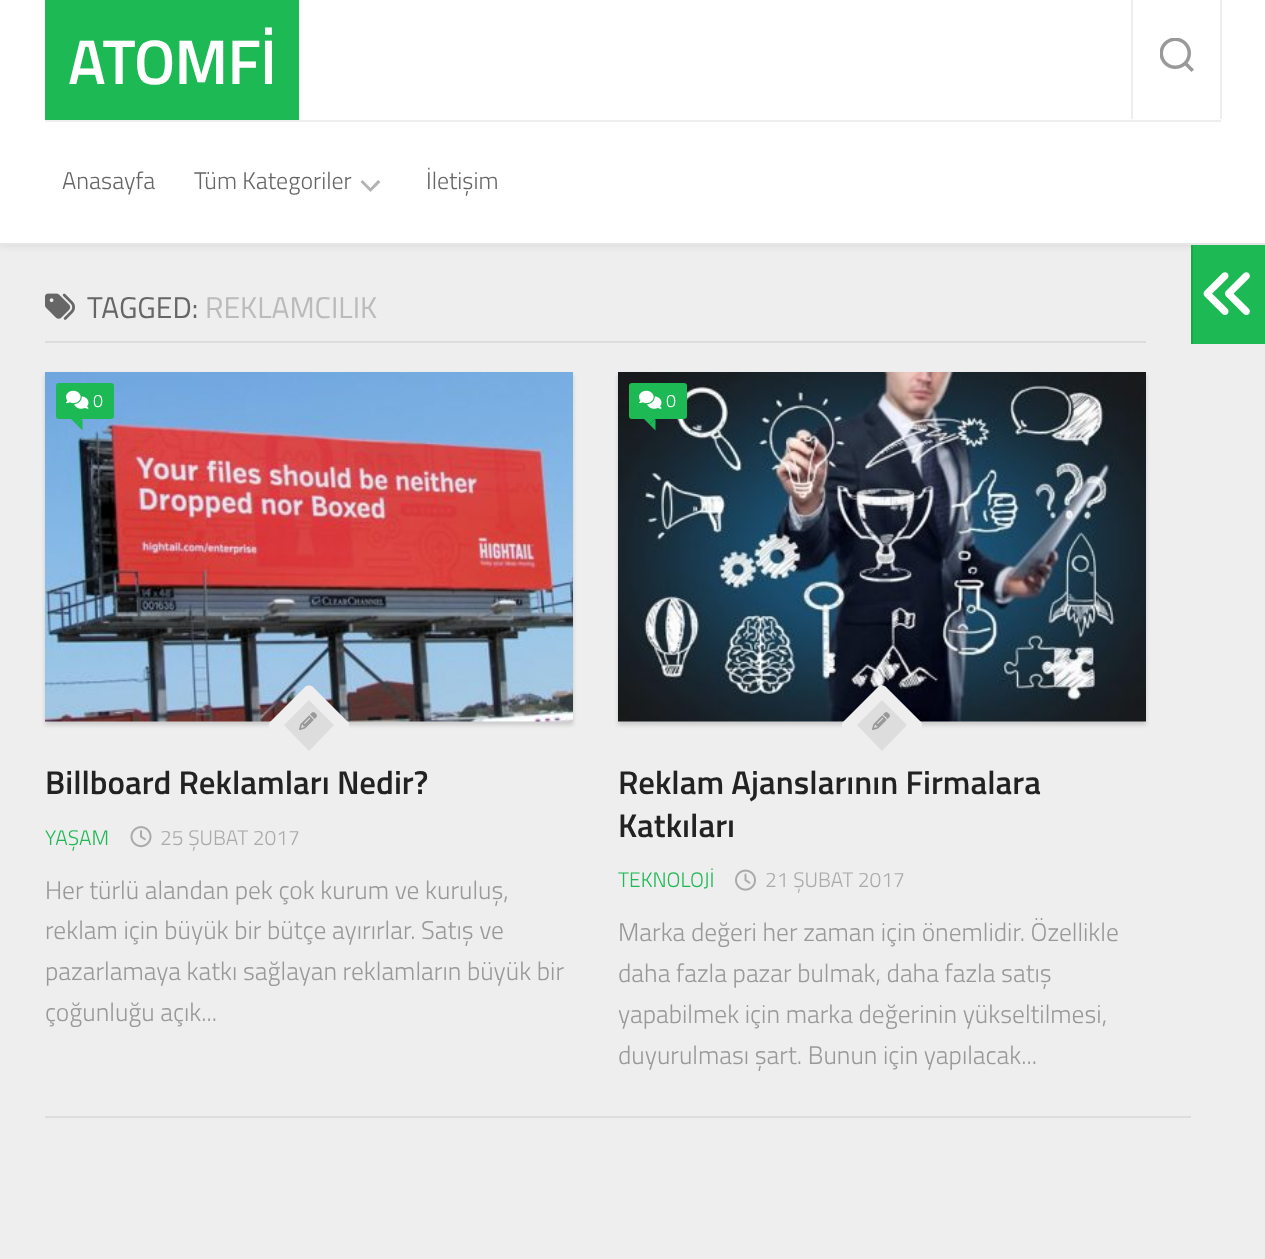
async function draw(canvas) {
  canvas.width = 1265
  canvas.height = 1259
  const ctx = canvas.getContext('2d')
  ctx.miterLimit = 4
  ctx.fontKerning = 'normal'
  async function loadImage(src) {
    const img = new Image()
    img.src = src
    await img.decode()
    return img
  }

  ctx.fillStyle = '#eee'
  ctx.fillRect(0, 0, 1265, 1259)
  ctx.fillStyle = '#0000001a'
  ctx.filter = 'blur(4px)'
  ctx.beginPath()
  ctx.rect(0, 0, 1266, 245)
  ctx.fill()
  ctx.filter = 'none'
  ctx.fillStyle = '#fff'
  ctx.fillRect(0, 0, 1265, 243)
  ctx.fillStyle = '#e6e6e6'
  ctx.fillRect(0, 243, 1265, 2)
  ctx.fillStyle = '#1db954'
  ctx.fillRect(45, 0, 254, 120)
  ctx.letterSpacing = '-0.75px'
  ctx.font = '600 63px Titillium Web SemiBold'
  ctx.fillStyle = '#fff'
  ctx.fillText('ATOMFİ', 68, 84)
  ctx.fillStyle = '#eee'
  ctx.fillRect(45, 120, 1176, 2)
  ctx.letterSpacing = '0px'
  ctx.font = '300 24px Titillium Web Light'
  ctx.fillStyle = '#666'
  ctx.fillText('Anasayfa', 62, 189)
  ctx.fillText('Tüm Kategoriler', 194, 189)
  ctx.fillStyle = '#b3b3b3'
  ctx.beginPath()
  ctx.moveTo(370.5, 188)
  ctx.lineTo(378, 180)
  ctx.lineTo(380.5, 182)
  ctx.lineTo(370.5, 192)
  ctx.lineTo(360.5, 182)
  ctx.lineTo(362.5, 180)
  ctx.closePath()
  ctx.fill('evenodd')
  ctx.fillStyle = '#666'
  ctx.fillText('İletişim', 426, 189)
  ctx.fillStyle = '#eee'
  ctx.fillRect(1220, 0, 2, 119)
  ctx.fillRect(1131, 0, 2, 119)
  ctx.drawImage(await loadImage('image0.png'), 1160, 38, 34, 34)
  ctx.fillStyle = '#ddd'
  ctx.fillRect(45, 341, 1101, 2)
  ctx.drawImage(await loadImage('image1.png'), 45, 293, 30, 27)
  ctx.font = '30px Titillium Web'
  ctx.fillStyle = '#666'
  ctx.fillText('TAGGED:', 87, 318)
  ctx.fillStyle = '#bbb'
  ctx.fillText('REKLAMCILIK', 205, 318)
  ctx.fillStyle = '#ddd'
  ctx.fillRect(45, 1116, 1146, 2)
  ctx.fillStyle = '#00000026'
  ctx.filter = 'blur(2px)'
  ctx.beginPath()
  ctx.rect(45, 375, 528, 350)
  ctx.fill()
  ctx.filter = 'none'
  ctx.drawImage(await loadImage('image2.png'), 45, 372, 528, 350)
  ctx.fillStyle = '#1db954'
  ctx.beginPath()
  ctx.roundRect(56, 383, 58, 36, 3)
  ctx.fill()
  ctx.drawImage(await loadImage('image3.png'), 66, 390, 23, 19)
  ctx.font = '300 18px Titillium Web Light'
  ctx.fillStyle = '#fff'
  ctx.fillText('0', 93, 407)
  ctx.fillStyle = '#1db954'
  ctx.beginPath()
  ctx.moveTo(70.5, 418.5)
  ctx.lineTo(82.5, 418.5)
  ctx.lineTo(76.5, 424.5)
  ctx.closePath()
  ctx.fill()
  ctx.beginPath()
  ctx.moveTo(82.5, 418.5)
  ctx.lineTo(82.5, 430.5)
  ctx.lineTo(76.5, 424.5)
  ctx.closePath()
  ctx.fill()
  ctx.fillStyle = '#eee'
  ctx.beginPath()
  ctx.moveTo(313, 687)
  ctx.lineTo(347, 721)
  ctx.bezierCurveTo(350, 723, 350, 727, 347, 729)
  ctx.lineTo(313, 763)
  ctx.bezierCurveTo(311, 766, 307, 766, 305, 763)
  ctx.lineTo(271, 729)
  ctx.bezierCurveTo(268, 727, 268, 723, 271, 721)
  ctx.lineTo(305, 687)
  ctx.bezierCurveTo(307, 685, 311, 685, 313, 687)
  ctx.closePath()
  ctx.fill()
  ctx.fillStyle = '#ddd'
  ctx.beginPath()
  ctx.moveTo(309, 700)
  ctx.lineTo(334, 725)
  ctx.lineTo(309, 751)
  ctx.lineTo(284, 725)
  ctx.closePath()
  ctx.fill()
  ctx.drawImage(await loadImage('image4.png'), 299, 712, 18, 18)
  ctx.font = '600 33px Titillium Web SemiBold'
  ctx.fillStyle = '#222'
  ctx.fillText('Billboard Reklamları Nedir?', 45, 794)
  ctx.font = '300 21px Titillium Web Light'
  ctx.fillStyle = '#1db954'
  ctx.fillText('YAŞAM', 45, 845)
  ctx.drawImage(await loadImage('image5.png'), 130, 826, 22, 22)
  ctx.fillStyle = '#aaa'
  ctx.fillText('25 ŞUBAT 2017', 160, 845)
  ctx.font = '300 25.5px Titillium Web Light'
  ctx.fillStyle = '#999'
  ctx.fillText('Her türlü alandan pek çok kurum ve kuruluş,', 45, 899)
  ctx.fillText('reklam için büyük bir bütçe ayırırlar. Satış ve', 45, 939)
  ctx.fillText('pazarlamaya katkı sağlayan reklamların büyük bir', 45, 980)
  ctx.fillText('çoğunluğu açık...', 45, 1021)
  ctx.fillStyle = '#00000026'
  ctx.filter = 'blur(2px)'
  ctx.beginPath()
  ctx.rect(618, 375, 528, 350)
  ctx.fill()
  ctx.filter = 'none'
  ctx.drawImage(await loadImage('image6.png'), 618, 372, 528, 350)
  ctx.fillStyle = '#1db954'
  ctx.beginPath()
  ctx.roundRect(629, 383, 58, 36, 3)
  ctx.fill()
  ctx.drawImage(await loadImage('image3.png'), 639, 390, 23, 19)
  ctx.font = '300 18px Titillium Web Light'
  ctx.fillStyle = '#fff'
  ctx.fillText('0', 666, 407)
  ctx.fillStyle = '#1db954'
  ctx.beginPath()
  ctx.moveTo(643.5, 418.5)
  ctx.lineTo(655.5, 418.5)
  ctx.lineTo(649.5, 424.5)
  ctx.closePath()
  ctx.fill()
  ctx.beginPath()
  ctx.moveTo(655.5, 418.5)
  ctx.lineTo(655.5, 430.5)
  ctx.lineTo(649.5, 424.5)
  ctx.closePath()
  ctx.fill()
  ctx.fillStyle = '#eee'
  ctx.beginPath()
  ctx.moveTo(886, 687)
  ctx.lineTo(920, 721)
  ctx.bezierCurveTo(923, 723, 923, 727, 920, 729)
  ctx.lineTo(886, 763)
  ctx.bezierCurveTo(884, 766, 880, 766, 878, 763)
  ctx.lineTo(844, 729)
  ctx.bezierCurveTo(841, 727, 841, 723, 844, 721)
  ctx.lineTo(878, 687)
  ctx.bezierCurveTo(880, 685, 884, 685, 886, 687)
  ctx.closePath()
  ctx.fill()
  ctx.fillStyle = '#ddd'
  ctx.beginPath()
  ctx.moveTo(882, 700)
  ctx.lineTo(907, 725)
  ctx.lineTo(882, 751)
  ctx.lineTo(857, 725)
  ctx.closePath()
  ctx.fill()
  ctx.drawImage(await loadImage('image4.png'), 872, 712, 18, 18)
  ctx.font = '600 33px Titillium Web SemiBold'
  ctx.fillStyle = '#222'
  ctx.fillText('Reklam Ajanslarının Firmalara', 618, 794)
  ctx.fillText('Katkıları', 618, 837)
  ctx.font = '300 21px Titillium Web Light'
  ctx.fillStyle = '#1db954'
  ctx.fillText('TEKNOLOJİ', 618, 887)
  ctx.drawImage(await loadImage('image7.png'), 735, 869, 21, 22)
  ctx.fillStyle = '#aaa'
  ctx.fillText('21 ŞUBAT 2017', 765, 887)
  ctx.font = '300 25.5px Titillium Web Light'
  ctx.fillStyle = '#999'
  ctx.fillText('Marka değeri her zaman için önemlidir. Özellikle', 618, 941)
  ctx.fillText('daha fazla pazar bulmak, daha fazla satış', 618, 982)
  ctx.fillText('yapabilmek için marka değerinin yükseltilmesi,', 618, 1023)
  ctx.fillText('duyurulması şart. Bunun için yapılacak...', 618, 1064)
  ctx.fillStyle = '#1db954'
  ctx.fillRect(1193, 245, 72, 99)
  ctx.fillStyle = '#1aa74c'
  ctx.fillRect(1191, 245, 2, 99)
  ctx.drawImage(await loadImage('image8.png'), 1203, 272, 47, 43)
}

draw(document.querySelector('canvas'))
